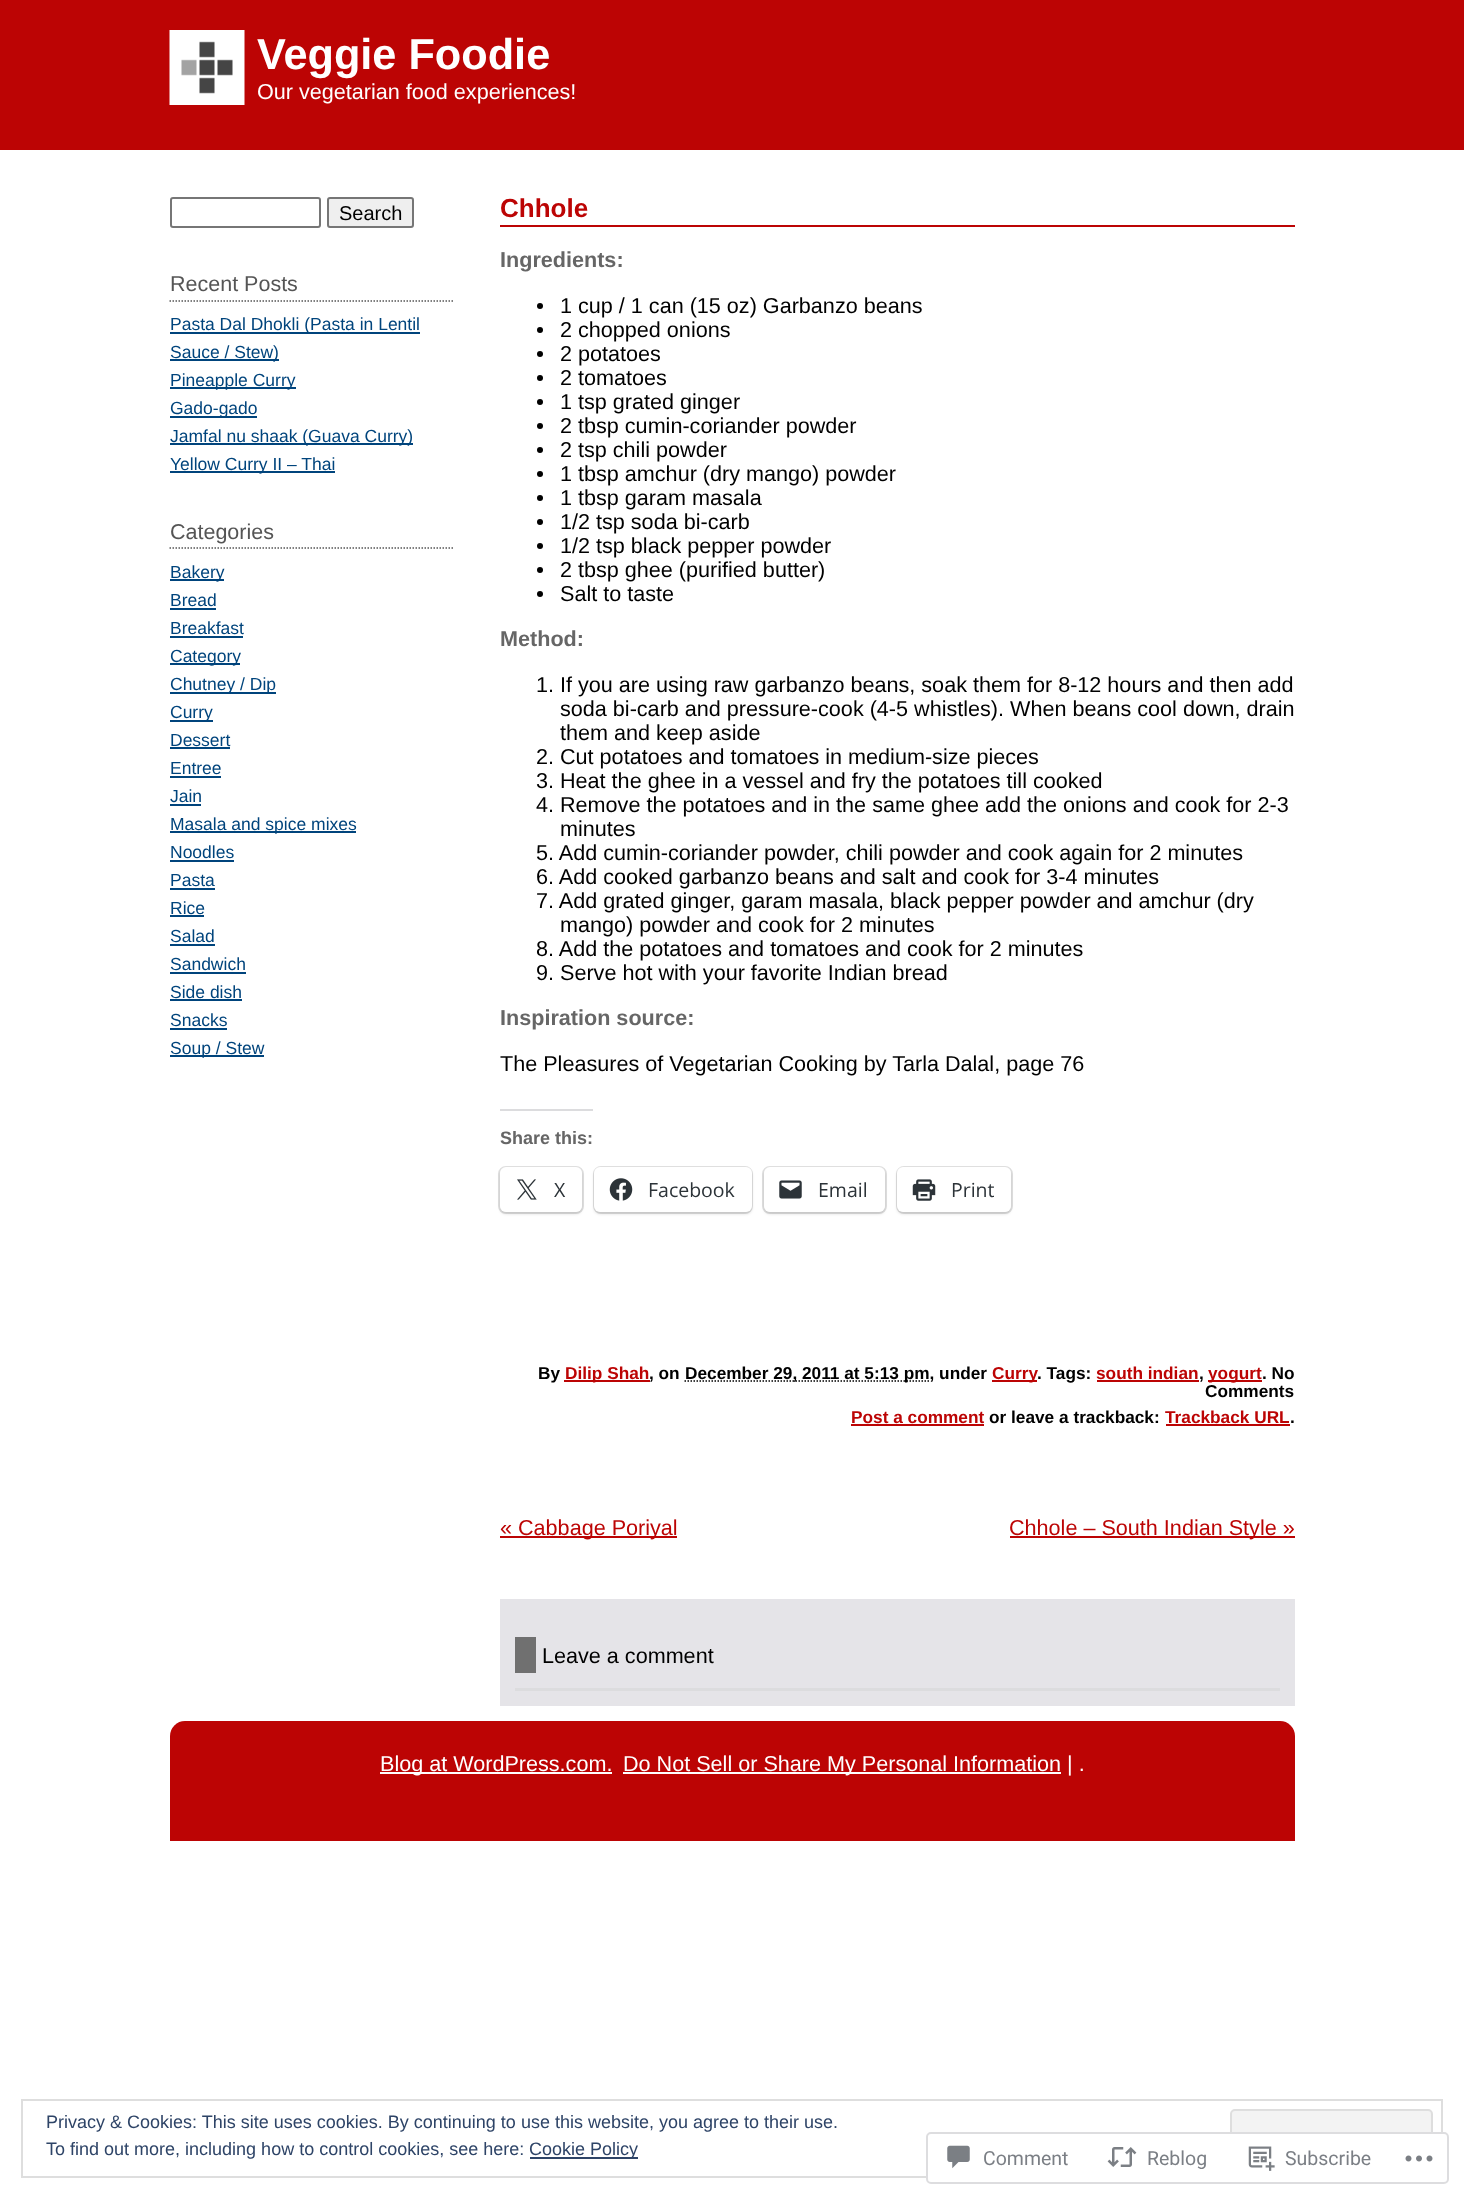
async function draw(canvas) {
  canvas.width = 1464
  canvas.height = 2199
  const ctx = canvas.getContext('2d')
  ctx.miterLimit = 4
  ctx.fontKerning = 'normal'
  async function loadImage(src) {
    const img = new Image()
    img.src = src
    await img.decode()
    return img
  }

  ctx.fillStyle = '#fff'
  ctx.fillRect(0, 0, 1464, 2199)
  ctx.fillStyle = '#bc0404'
  ctx.fillRect(0, 0, 1464, 150)
  ctx.drawImage(await loadImage('image0.png'), 169, 30, 76, 75)
  ctx.font = 'bold 43.25px Liberation Sans'
  ctx.fillStyle = '#fff'
  ctx.fillText('Veggie Foodie', 257, 69)
  ctx.font = '21.6px Liberation Sans'
  ctx.fillText('Our vegetarian food experiences!', 257, 99)
  ctx.beginPath()
  ctx.roundRect(171, 198, 149, 29, 2)
  ctx.strokeStyle = '#767676'
  ctx.lineWidth = 2
  ctx.stroke()
  ctx.fillStyle = '#efefef'
  ctx.beginPath()
  ctx.roundRect(328, 198, 85, 29, 2)
  ctx.fill()
  ctx.stroke()
  ctx.font = '20px Liberation Sans'
  ctx.fillStyle = '#000'
  ctx.fillText('Search', 339, 220)
  ctx.beginPath()
  ctx.moveTo(169.5, 301)
  ctx.lineTo(454.5, 301)
  ctx.strokeStyle = '#555'
  ctx.lineWidth = 1.5
  ctx.setLineDash([1.5, 1.5])
  ctx.stroke()
  ctx.font = '21.5px Liberation Sans'
  ctx.fillStyle = '#555'
  ctx.fillText('Recent Posts', 170, 291)
  ctx.fillStyle = '#00447c'
  ctx.fillRect(170, 332, 250, 2)
  ctx.font = '17.5px Liberation Sans'
  ctx.fillText('Pasta Dal Dhokli (Pasta in Lentil', 170, 330)
  ctx.fillRect(170, 359, 109, 2)
  ctx.fillText('Sauce / Stew)', 170, 358)
  ctx.fillRect(170, 387, 126, 2)
  ctx.fillText('Pineapple Curry', 170, 386)
  ctx.fillRect(170, 416, 87, 2)
  ctx.fillText('Gado-gado', 170, 414)
  ctx.fillRect(170, 443, 243, 2)
  ctx.fillText('Jamfal nu shaak (Guava Curry)', 170, 442)
  ctx.fillRect(170, 471, 165, 2)
  ctx.fillText('Yellow Curry II – Thai', 170, 470)
  ctx.beginPath()
  ctx.moveTo(169.5, 548)
  ctx.lineTo(454.5, 548)
  ctx.stroke()
  ctx.font = '21.5px Liberation Sans'
  ctx.fillStyle = '#555'
  ctx.fillText('Categories', 170, 539)
  ctx.fillStyle = '#00447c'
  ctx.fillRect(170, 579, 54, 2)
  ctx.font = '17.5px Liberation Sans'
  ctx.fillText('Bakery', 170, 578)
  ctx.fillText('Bread', 170, 606)
  ctx.fillRect(170, 608, 46, 2)
  ctx.fillText('Breakfast', 170, 634)
  ctx.fillRect(170, 636, 73, 2)
  ctx.fillRect(170, 663, 70, 2)
  ctx.fillText('Category', 170, 662)
  ctx.fillRect(170, 692, 106, 2)
  ctx.fillText('Chutney / Dip', 170, 690)
  ctx.fillRect(170, 720, 43, 2)
  ctx.fillText('Curry', 170, 718)
  ctx.fillText('Dessert', 170, 746)
  ctx.fillRect(170, 747, 60, 2)
  ctx.fillText('Entree', 170, 774)
  ctx.fillRect(170, 776, 51, 2)
  ctx.fillText('Jain', 170, 802)
  ctx.fillRect(170, 804, 31, 2)
  ctx.fillRect(170, 831, 186, 2)
  ctx.fillText('Masala and spice mixes', 170, 830)
  ctx.fillText('Noodles', 170, 858)
  ctx.fillRect(170, 860, 64, 2)
  ctx.fillText('Pasta', 170, 886)
  ctx.fillRect(170, 888, 45, 2)
  ctx.fillText('Rice', 170, 914)
  ctx.fillRect(170, 915, 34, 2)
  ctx.fillText('Salad', 170, 942)
  ctx.fillRect(170, 944, 45, 2)
  ctx.fillText('Sandwich', 170, 970)
  ctx.fillRect(170, 972, 76, 2)
  ctx.fillText('Side dish', 170, 998)
  ctx.fillRect(170, 999, 72, 2)
  ctx.fillText('Snacks', 170, 1026)
  ctx.fillRect(170, 1028, 57, 2)
  ctx.fillRect(170, 1055, 94, 2)
  ctx.fillText('Soup / Stew', 170, 1054)
  ctx.fillStyle = '#bc0404'
  ctx.fillRect(500, 225, 795, 2)
  ctx.font = 'bold 26px Liberation Sans'
  ctx.fillText('Chhole', 500, 217)
  ctx.font = 'bold 21.6px Liberation Sans'
  ctx.fillStyle = '#666'
  ctx.fillText('Ingredients:', 500, 267)
  ctx.fillStyle = '#000'
  ctx.beginPath()
  ctx.arc(540, 306, 3, 0, 2 * Math.PI)
  ctx.fill()
  ctx.font = '21.6px Liberation Sans'
  ctx.fillText('1 cup / 1 can (15 oz) Garbanzo beans', 560, 313)
  ctx.beginPath()
  ctx.arc(540, 330, 3, 0, 2 * Math.PI)
  ctx.fill()
  ctx.fillText('2 chopped onions', 560, 337)
  ctx.beginPath()
  ctx.arc(540, 354, 3, 0, 2 * Math.PI)
  ctx.fill()
  ctx.fillText('2 potatoes', 560, 361)
  ctx.beginPath()
  ctx.arc(540, 378, 3, 0, 2 * Math.PI)
  ctx.fill()
  ctx.fillText('2 tomatoes', 560, 385)
  ctx.beginPath()
  ctx.arc(540, 402, 3, 0, 2 * Math.PI)
  ctx.fill()
  ctx.fillText('1 tsp grated ginger', 560, 409)
  ctx.beginPath()
  ctx.arc(540, 426, 3, 0, 2 * Math.PI)
  ctx.fill()
  ctx.fillText('2 tbsp cumin-coriander powder', 560, 433)
  ctx.beginPath()
  ctx.arc(540, 450, 3, 0, 2 * Math.PI)
  ctx.fill()
  ctx.fillText('2 tsp chili powder', 560, 457)
  ctx.beginPath()
  ctx.arc(540, 474, 3, 0, 2 * Math.PI)
  ctx.fill()
  ctx.fillText('1 tbsp amchur (dry mango) powder', 560, 481)
  ctx.beginPath()
  ctx.arc(540, 498, 3, 0, 2 * Math.PI)
  ctx.fill()
  ctx.fillText('1 tbsp garam masala', 560, 505)
  ctx.beginPath()
  ctx.arc(540, 522, 3, 0, 2 * Math.PI)
  ctx.fill()
  ctx.fillText('1/2 tsp soda bi-carb', 560, 529)
  ctx.beginPath()
  ctx.arc(540, 546, 3, 0, 2 * Math.PI)
  ctx.fill()
  ctx.fillText('1/2 tsp black pepper powder', 560, 553)
  ctx.beginPath()
  ctx.arc(540, 570, 3, 0, 2 * Math.PI)
  ctx.fill()
  ctx.fillText('2 tbsp ghee (purified butter)', 560, 577)
  ctx.beginPath()
  ctx.arc(540, 594, 3, 0, 2 * Math.PI)
  ctx.fill()
  ctx.fillText('Salt to taste', 560, 601)
  ctx.font = 'bold 21.6px Liberation Sans'
  ctx.fillStyle = '#666'
  ctx.fillText('Method:', 500, 646)
  ctx.font = '21.6px Liberation Sans'
  ctx.fillStyle = '#000'
  ctx.fillText('1. If you are using raw garbanzo beans, soak them for 8-12 hours and then add', 536, 692)
  ctx.fillText('soda bi-carb and pressure-cook (4-5 whistles). When beans cool down, drain', 560, 716)
  ctx.fillText('them and keep aside', 560, 740)
  ctx.fillText('2. Cut potatoes and tomatoes in medium-size pieces', 536, 764)
  ctx.fillText('3. Heat the ghee in a vessel and fry the potatoes till cooked', 536, 788)
  ctx.fillText('4. Remove the potatoes and in the same ghee add the onions and cook for 2-3', 536, 812)
  ctx.fillText('minutes', 560, 836)
  ctx.fillText('5. Add cumin-coriander powder, chili powder and cook again for 2 minutes', 536, 860)
  ctx.fillText('6. Add cooked garbanzo beans and salt and cook for 3-4 minutes', 536, 884)
  ctx.fillText('7. Add grated ginger, garam masala, black pepper powder and amchur (dry', 536, 908)
  ctx.fillText('mango) powder and cook for 2 minutes', 560, 932)
  ctx.fillText('8. Add the potatoes and tomatoes and cook for 2 minutes', 536, 956)
  ctx.fillText('9. Serve hot with your favorite Indian bread', 536, 980)
  ctx.font = 'bold 21.6px Liberation Sans'
  ctx.fillStyle = '#666'
  ctx.fillText('Inspiration source:', 500, 1025)
  ctx.font = '21.6px Liberation Sans'
  ctx.fillStyle = '#000'
  ctx.fillText('The Pleasures of Vegetarian Cooking by Tarla Dalal, page 76', 500, 1071)
  ctx.fillStyle = '#dcdcde'
  ctx.fillRect(500, 1109, 93, 2)
  ctx.font = 'bold 18px Liberation Sans'
  ctx.fillStyle = '#666'
  ctx.fillText('Share this:', 500, 1144)
  ctx.beginPath()
  ctx.roundRect(499, 1167, 84, 46, 7)
  ctx.strokeStyle = '#e0e0e0'
  ctx.lineWidth = 2
  ctx.setLineDash([])
  ctx.stroke()
  ctx.fillStyle = '#0000001f'
  ctx.filter = 'blur(1.5px)'
  ctx.beginPath()
  ctx.roundRect(500, 1169, 82, 45, 6)
  ctx.fill()
  ctx.filter = 'none'
  ctx.fillStyle = '#fff'
  ctx.beginPath()
  ctx.roundRect(500, 1167, 82, 45, 6)
  ctx.fill()
  ctx.drawImage(await loadImage('image1.png'), 517, 1179, 20, 21)
  ctx.font = '19.5px Open Sans'
  ctx.fillStyle = '#2c3338'
  ctx.fillText('X', 554, 1197)
  ctx.beginPath()
  ctx.roundRect(594, 1167, 158, 46, 7)
  ctx.stroke()
  ctx.fillStyle = '#0000001f'
  ctx.filter = 'blur(1.5px)'
  ctx.beginPath()
  ctx.roundRect(594, 1169, 158, 45, 6)
  ctx.fill()
  ctx.filter = 'none'
  ctx.fillStyle = '#fff'
  ctx.beginPath()
  ctx.roundRect(594, 1167, 158, 45, 6)
  ctx.fill()
  ctx.drawImage(await loadImage('image2.png'), 609, 1178, 24, 23)
  ctx.fillStyle = '#2c3338'
  ctx.fillText('Facebook', 648, 1197)
  ctx.beginPath()
  ctx.roundRect(763, 1167, 123, 46, 7)
  ctx.stroke()
  ctx.fillStyle = '#0000001f'
  ctx.filter = 'blur(1.5px)'
  ctx.beginPath()
  ctx.roundRect(764, 1169, 121, 45, 6)
  ctx.fill()
  ctx.filter = 'none'
  ctx.fillStyle = '#fff'
  ctx.beginPath()
  ctx.roundRect(764, 1167, 121, 45, 6)
  ctx.fill()
  ctx.drawImage(await loadImage('image3.png'), 779, 1180, 23, 19)
  ctx.fillStyle = '#2c3338'
  ctx.fillText('Email', 818, 1197)
  ctx.beginPath()
  ctx.roundRect(897, 1167, 115, 46, 7)
  ctx.stroke()
  ctx.fillStyle = '#0000001f'
  ctx.filter = 'blur(1.5px)'
  ctx.beginPath()
  ctx.roundRect(897, 1169, 114, 45, 6)
  ctx.fill()
  ctx.filter = 'none'
  ctx.fillStyle = '#fff'
  ctx.beginPath()
  ctx.roundRect(897, 1167, 114, 45, 6)
  ctx.fill()
  ctx.drawImage(await loadImage('image4.png'), 912, 1179, 24, 22)
  ctx.fillStyle = '#2c3338'
  ctx.fillText('Print', 951, 1197)
  ctx.font = 'bold 17.25px Liberation Sans'
  ctx.fillStyle = '#000'
  ctx.fillText('By', 538, 1379)
  ctx.fillStyle = '#bc0404'
  ctx.fillRect(564, 1380, 86, 2)
  ctx.fillText('Dilip Shah', 565, 1379)
  ctx.fillStyle = '#000'
  ctx.fillText(', on', 649, 1379)
  ctx.beginPath()
  ctx.moveTo(684.5, 1381)
  ctx.lineTo(929.5, 1381)
  ctx.strokeStyle = '#000'
  ctx.lineWidth = 1.5
  ctx.setLineDash([1.5, 1.5])
  ctx.stroke()
  ctx.fillText('December 29, 2011 at 5:13 pm, under', 685, 1379)
  ctx.fillStyle = '#bc0404'
  ctx.fillRect(992, 1380, 45, 2)
  ctx.fillText('Curry', 992, 1379)
  ctx.fillStyle = '#000'
  ctx.fillText('. Tags:', 1037, 1379)
  ctx.fillStyle = '#bc0404'
  ctx.fillText('south indian', 1096, 1379)
  ctx.fillRect(1097, 1380, 102, 2)
  ctx.fillStyle = '#000'
  ctx.fillText(',', 1199, 1379)
  ctx.fillStyle = '#bc0404'
  ctx.fillRect(1208, 1380, 54, 2)
  ctx.fillText('yogurt', 1208, 1379)
  ctx.fillStyle = '#000'
  ctx.fillText('. No', 1262, 1379)
  ctx.fillText('Comments', 1205, 1397)
  ctx.fillStyle = '#bc0404'
  ctx.fillText('Post a comment', 851, 1423)
  ctx.fillRect(851, 1424, 133, 2)
  ctx.fillStyle = '#000'
  ctx.fillText('or leave a trackback:', 989, 1423)
  ctx.fillStyle = '#bc0404'
  ctx.fillText('Trackback URL', 1165, 1423)
  ctx.fillRect(1166, 1424, 124, 2)
  ctx.fillStyle = '#000'
  ctx.fillText('.', 1290, 1423)
  ctx.fillStyle = '#bc0404'
  ctx.fillRect(500, 1536, 177, 2)
  ctx.font = '21.6px Liberation Sans'
  ctx.fillText('« Cabbage Poriyal', 500, 1535)
  ctx.fillRect(1010, 1536, 285, 2)
  ctx.fillText('Chhole – South Indian Style »', 1009, 1535)
  ctx.fillStyle = '#e5e4e8'
  ctx.fillRect(500, 1599, 795, 107)
  ctx.fillStyle = '#707070'
  ctx.fillRect(515, 1637, 21, 36)
  ctx.fillStyle = '#000'
  ctx.fillText('Leave a comment', 542, 1663)
  ctx.fillStyle = '#dcdcde'
  ctx.fillRect(515, 1688, 765, 3)
  ctx.fillStyle = '#bc0404'
  ctx.beginPath()
  ctx.roundRect(170, 1721, 1125, 120, [15, 15, 0, 0])
  ctx.fill()
  ctx.fillStyle = '#fff'
  ctx.fillRect(380, 1772, 232, 2)
  ctx.fillText('Blog at WordPress.com.', 380, 1771)
  ctx.fillRect(623, 1772, 438, 2)
  ctx.fillText('Do Not Sell or Share My Personal Information | .', 623, 1771)
  ctx.strokeStyle = '#dedede'
  ctx.lineWidth = 2
  ctx.setLineDash([])
  ctx.strokeRect(22, 2100, 1420, 77)
  ctx.font = '18px Liberation Sans'
  ctx.fillStyle = '#2e4467'
  ctx.fillText('Privacy & Cookies: This site uses cookies. By continuing to use this website, you agree to their use.', 46, 2128)
  ctx.fillStyle = '#f3f3f3'
  ctx.beginPath()
  ctx.roundRect(1231, 2110, 201, 57, 4)
  ctx.fill()
  ctx.stroke()
  ctx.fillStyle = '#2e4467'
  ctx.fillText('To find out more, including how to control cookies, see here:', 46, 2155)
  ctx.fillRect(530, 2157, 108, 2)
  ctx.fillText('Cookie Policy', 529, 2155)
  ctx.fillStyle = '#fffffffa'
  ctx.beginPath()
  ctx.roundRect(926, 2132, 523, 52, 5)
  ctx.fill()
  ctx.beginPath()
  ctx.roundRect(927, 2133, 521, 50, 4)
  ctx.strokeStyle = '#dcdcdefa'
  ctx.stroke()
  ctx.drawImage(await loadImage('image5.png'), 947, 2145, 23, 24)
  ctx.font = '19.5px Roboto'
  ctx.fillStyle = '#7b7f85'
  ctx.fillText('Comment', 983, 2165)
  ctx.drawImage(await loadImage('image6.png'), 1107, 2147, 30, 20)
  ctx.fillText('Reblog', 1147, 2165)
  ctx.drawImage(await loadImage('image7.png'), 1248, 2146, 27, 25)
  ctx.fillText('Subscribe', 1285, 2165)
  ctx.drawImage(await loadImage('image8.png'), 1405, 2155, 28, 7)
}

draw(document.querySelector('canvas'))
